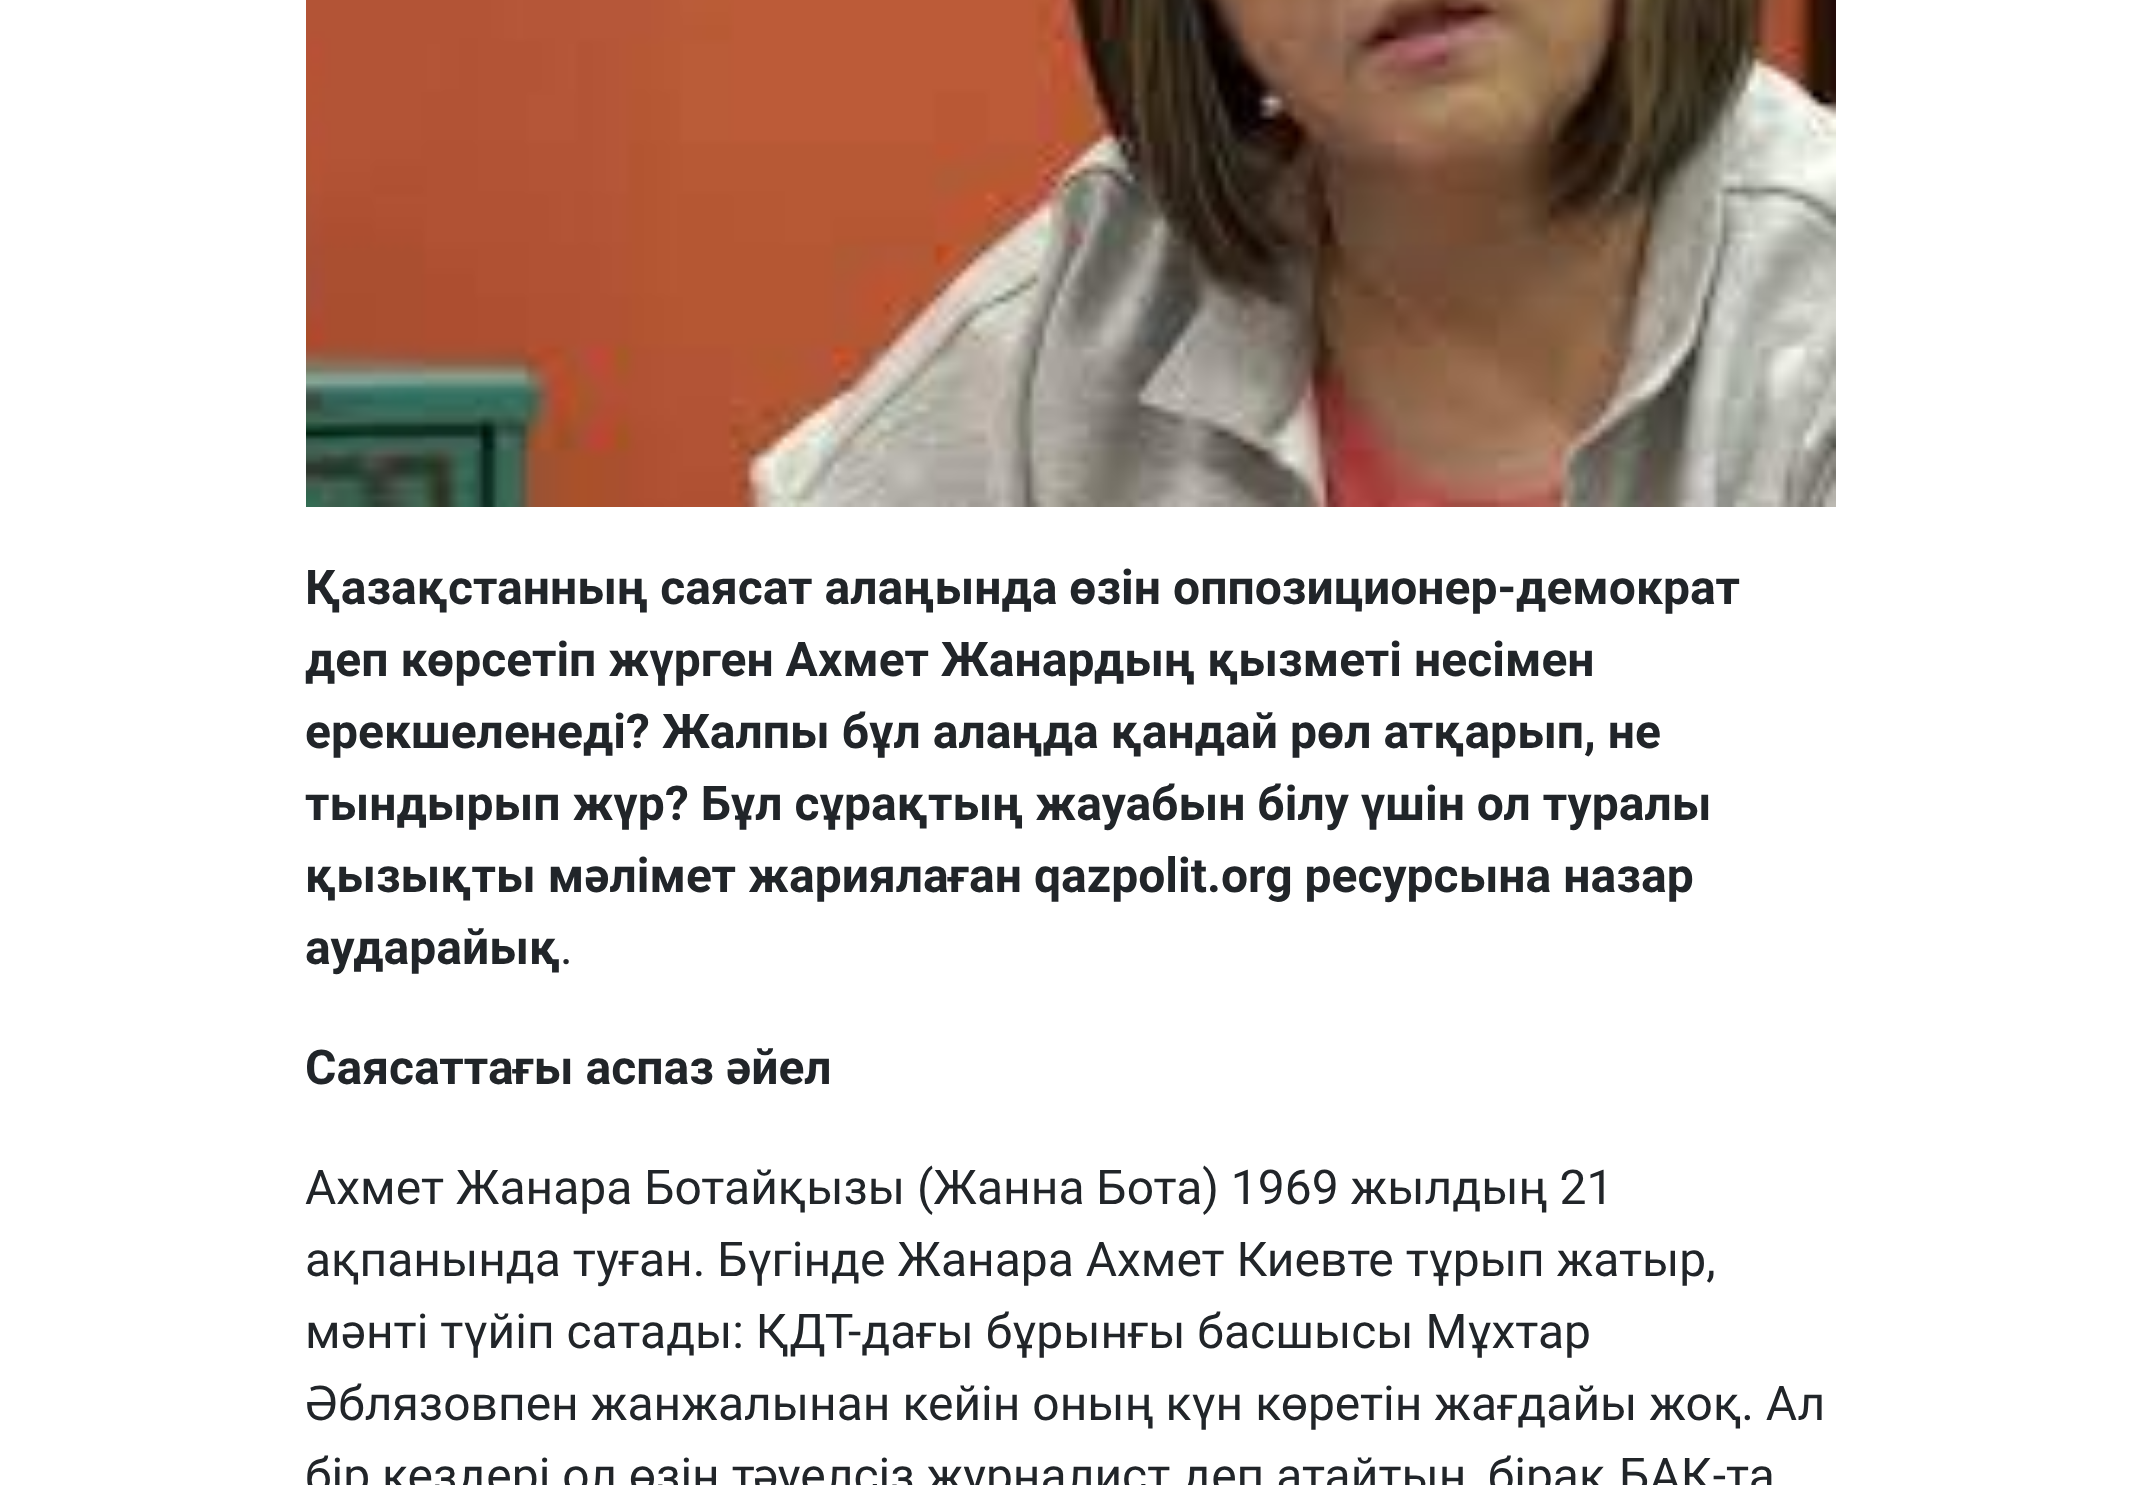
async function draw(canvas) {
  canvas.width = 2138
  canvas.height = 1485
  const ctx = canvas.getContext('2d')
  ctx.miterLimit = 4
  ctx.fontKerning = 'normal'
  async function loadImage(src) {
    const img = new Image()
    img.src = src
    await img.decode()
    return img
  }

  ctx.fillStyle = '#fff'
  ctx.fillRect(0, 0, 2138, 1485)
  ctx.drawImage(await loadImage('image0.png'), 306, 0, 1530, 507)
  ctx.font = 'bold 48px Roboto'
  ctx.fillStyle = '#212529'
  ctx.fillText('Қазақстанның саясат алаңында өзін оппозиционер-демократ', 305, 604)
  ctx.fillText('деп көрсетіп жүрген Ахмет Жанардың қызметі несімен', 305, 676)
  ctx.fillText('ерекшеленеді? Жалпы бұл алаңда қандай рөл атқарып, не', 305, 748)
  ctx.fillText('тындырып жүр? Бұл сұрақтың жауабын білу үшін ол туралы', 305, 820)
  ctx.fillText('қызықты мәлімет жариялаған qazpolit.org ресурсына назар', 305, 892)
  ctx.fillText('аударайық', 305, 964)
  ctx.font = '48px Roboto'
  ctx.fillText('.', 560, 964)
  ctx.font = 'bold 48px Roboto'
  ctx.fillText('Саясаттағы аспаз әйел', 305, 1084)
  ctx.font = '48px Roboto'
  ctx.fillText('Ахмет Жанара Ботайқызы (Жанна Бота) 1969 жылдың 21', 305, 1204)
  ctx.fillText('ақпанында туған. Бүгінде Жанара Ахмет Киевте тұрып жатыр,', 305, 1276)
  ctx.fillText('мәнті түйіп сатады: ҚДТ-дағы бұрынғы басшысы Мұхтар', 305, 1348)
  ctx.fillText('Әблязовпен жанжалынан кейін оның күн көретін жағдайы жоқ. Ал', 305, 1420)
  ctx.fillText('бір кездері ол өзін тәуелсіз журналист деп атайтын, бірақ БАҚ-та', 305, 1492)
}

draw(document.querySelector('canvas'))
